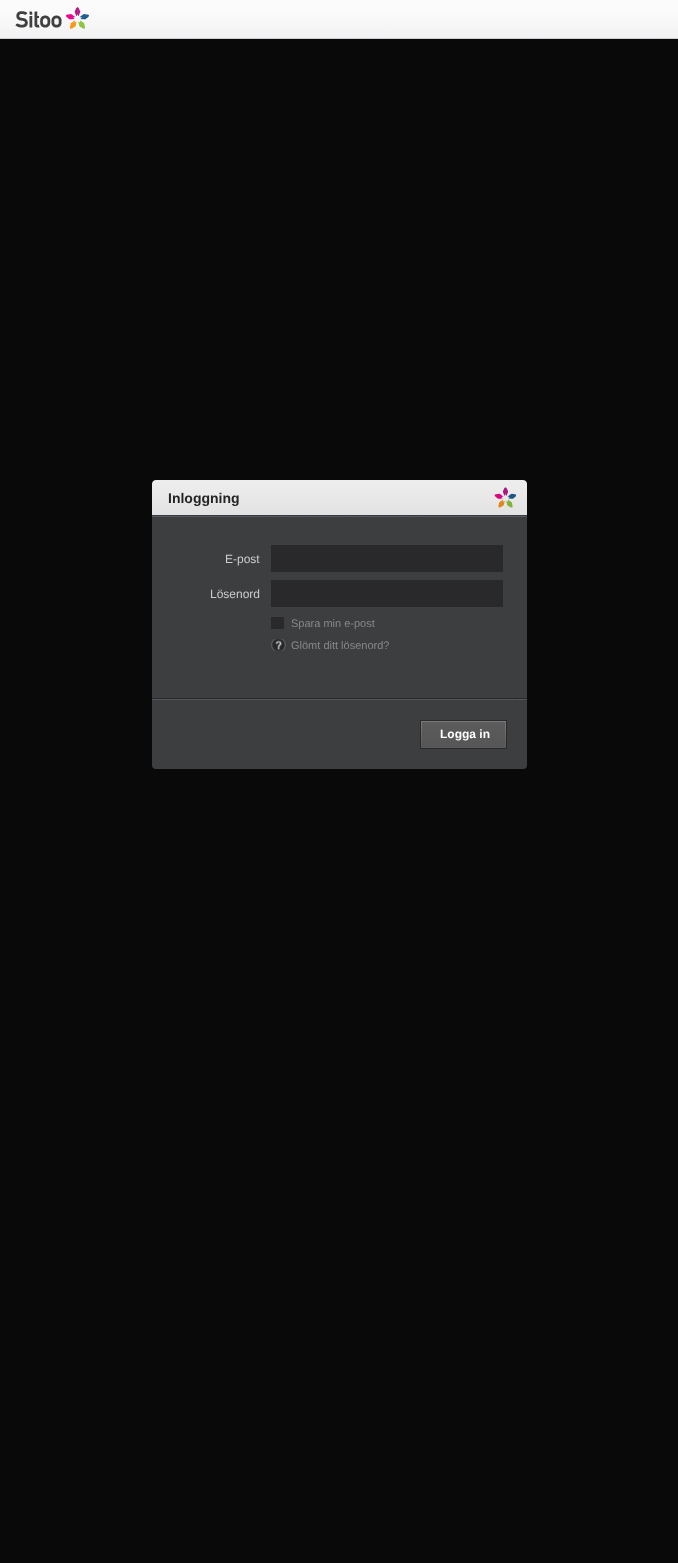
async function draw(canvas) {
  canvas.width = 678
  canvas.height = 1563
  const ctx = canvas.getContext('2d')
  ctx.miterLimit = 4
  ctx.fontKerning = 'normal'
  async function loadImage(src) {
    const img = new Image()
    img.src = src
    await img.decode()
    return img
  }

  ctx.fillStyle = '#090909'
  ctx.fillRect(0, 0, 678, 1563)
  ctx.drawImage(await loadImage('image0.png'), 0, 0, 678, 39)
  ctx.drawImage(await loadImage('image1.png'), 15, 7, 74, 22)
  ctx.drawImage(await loadImage('image2.png'), 152, 480, 375, 289)
  ctx.font = 'bold 14px Liberation Sans'
  ctx.fillStyle = '#252525'
  ctx.fillText('Inloggning', 168, 503)
  ctx.font = '12px Liberation Sans'
  ctx.fillStyle = '#ccc'
  ctx.fillText('E-post', 225, 563)
  ctx.fillStyle = '#29292b'
  ctx.fillRect(271, 545, 232, 27)
  ctx.fillStyle = '#ccc'
  ctx.fillText('Lösenord', 210, 598)
  ctx.fillStyle = '#29292b'
  ctx.fillRect(271, 580, 232, 27)
  ctx.font = '11px Liberation Sans'
  ctx.fillStyle = '#888'
  ctx.fillText('Spara min e-post', 291, 627)
  ctx.fillStyle = '#29292b'
  ctx.fillRect(271, 617, 13, 12)
  ctx.drawImage(await loadImage('image3.png'), 271, 639, 15, 12)
  ctx.fillStyle = '#888'
  ctx.fillText('Glömt ditt lösenord?', 291, 649)
  ctx.drawImage(await loadImage('image4.png'), 420, 720, 87, 29)
  ctx.font = 'bold 12px Liberation Sans'
  ctx.fillStyle = '#fff'
  ctx.fillText('Logga in', 440, 738)
}

draw(document.querySelector('canvas'))
